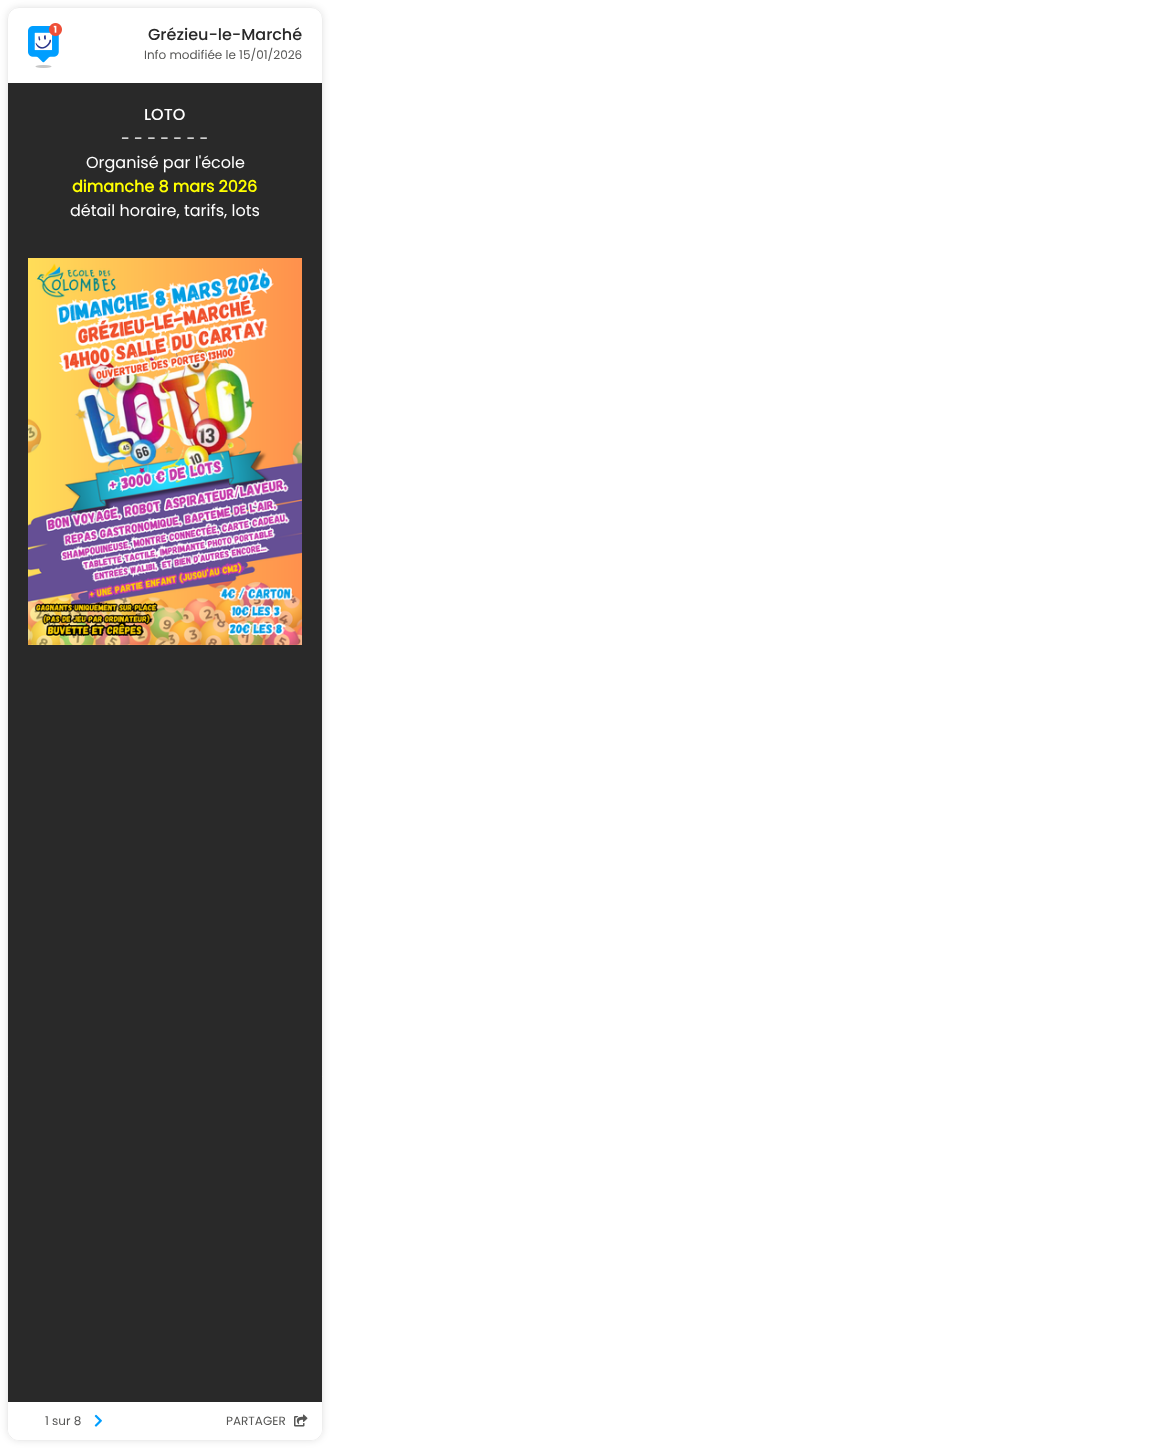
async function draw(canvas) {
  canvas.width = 1161
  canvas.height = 1448
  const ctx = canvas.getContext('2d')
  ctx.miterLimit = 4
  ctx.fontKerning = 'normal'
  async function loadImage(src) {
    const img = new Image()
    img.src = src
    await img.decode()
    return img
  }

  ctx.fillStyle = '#fff'
  ctx.fillRect(0, 0, 1161, 1448)
  ctx.save()
  ctx.beginPath()
  ctx.moveTo(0, 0)
  ctx.lineTo(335, 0)
  ctx.lineTo(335, 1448)
  ctx.lineTo(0, 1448)
  ctx.closePath()
  ctx.moveTo(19, 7)
  ctx.lineTo(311, 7)
  ctx.bezierCurveTo(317.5, 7, 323, 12.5, 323, 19)
  ctx.lineTo(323, 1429)
  ctx.bezierCurveTo(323, 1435.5, 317.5, 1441, 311, 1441)
  ctx.lineTo(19, 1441)
  ctx.bezierCurveTo(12.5, 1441, 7, 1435.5, 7, 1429)
  ctx.lineTo(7, 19)
  ctx.bezierCurveTo(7, 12.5, 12.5, 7, 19, 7)
  ctx.closePath()
  ctx.clip('evenodd')
  ctx.fillStyle = '#0000001a'
  ctx.filter = 'blur(3.5px)'
  ctx.beginPath()
  ctx.roundRect(7, 7, 316, 1434, 12)
  ctx.fill()
  ctx.filter = 'none'
  ctx.restore()
  ctx.beginPath()
  ctx.roundRect(7.5, 7.5, 315, 1433, 11.5)
  ctx.strokeStyle = '#eee'
  ctx.stroke()
  ctx.drawImage(await loadImage('image0.png'), 28, 23, 34, 45)
  ctx.font = '500 16px Poppins'
  ctx.fillStyle = '#292929'
  ctx.fillText('Grézieu-le-Marché', 148, 40)
  ctx.font = '12px Poppins'
  ctx.fillStyle = '#575756'
  ctx.fillText('Info modifiée le 15/01/2026', 144, 59)
  ctx.fillStyle = '#292929'
  ctx.fillRect(8, 83, 314, 1319)
  ctx.font = '500 16px Poppins'
  ctx.fillStyle = '#fff'
  ctx.fillText('LOTO', 144, 120)
  ctx.font = '16px Poppins'
  ctx.fillText('- - - - - - -', 121, 144)
  ctx.fillText('Organisé par l\'école', 86, 168)
  ctx.font = 'bold 16px Poppins'
  ctx.fillStyle = '#ff0'
  ctx.fillText('dimanche 8 mars 2026', 72, 192)
  ctx.font = '16px Poppins'
  ctx.fillStyle = '#fff'
  ctx.fillText('détail horaire, tarifs, lots', 70, 216)
  ctx.drawImage(await loadImage('image1.png'), 28, 258, 274, 387)
  ctx.beginPath()
  ctx.roundRect(8, 1402, 314, 38, [0, 0, 11, 11])
  ctx.fill()
  ctx.font = '12px Poppins'
  ctx.fillStyle = '#575756'
  ctx.fillText('1 sur 8', 45, 1425)
  ctx.drawImage(await loadImage('image2.png'), 94, 1414, 8, 13)
  ctx.fillText('PARTAGER', 226, 1425)
  ctx.drawImage(await loadImage('image3.png'), 294, 1414, 14, 13)
}

draw(document.querySelector('canvas'))
